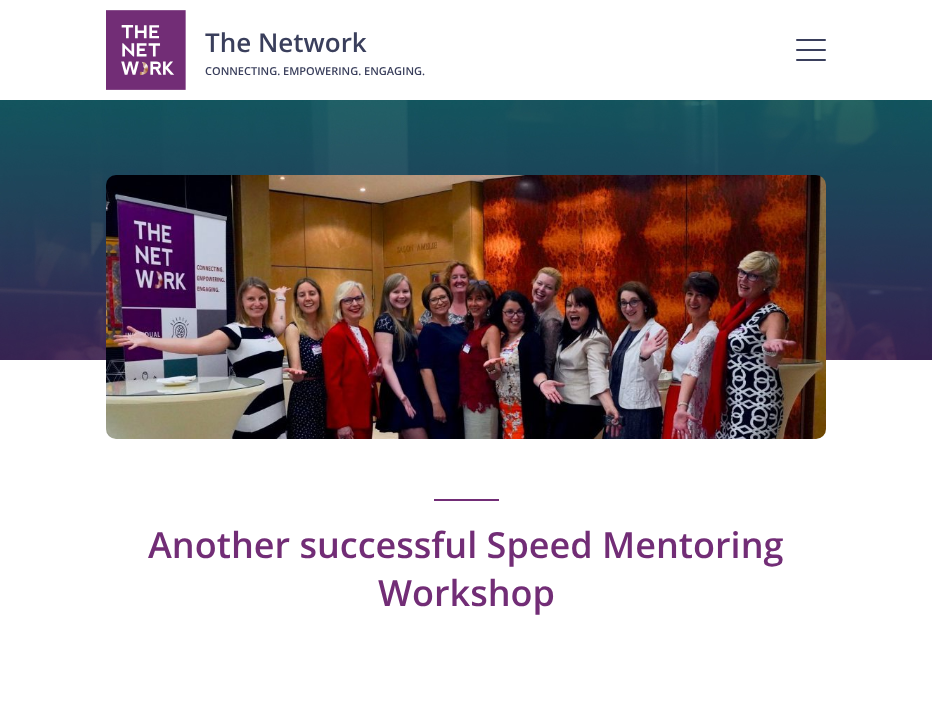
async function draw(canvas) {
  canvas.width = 932
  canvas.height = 709
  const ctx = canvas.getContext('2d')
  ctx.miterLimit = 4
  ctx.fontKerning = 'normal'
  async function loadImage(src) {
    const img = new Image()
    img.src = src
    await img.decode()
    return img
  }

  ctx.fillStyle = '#fff'
  ctx.fillRect(0, 0, 932, 709)
  ctx.drawImage(await loadImage('image0.png'), 106, 10, 80, 80)
  ctx.font = '600 26px Open Sans'
  ctx.fillStyle = '#3a3f5c'
  ctx.fillText('The Network', 205, 52)
  ctx.font = '600 11px Open Sans'
  ctx.fillText('CONNECTING. EMPOWERING. ENGAGING.', 205, 75)
  ctx.beginPath()
  ctx.roundRect(796, 39, 30, 2, 1)
  ctx.fill()
  ctx.beginPath()
  ctx.roundRect(796, 49, 30, 2, 1)
  ctx.fill()
  ctx.beginPath()
  ctx.roundRect(796, 59, 30, 2, 1)
  ctx.fill()
  ctx.drawImage(await loadImage('image1.png'), 0, 100, 932, 260)
  ctx.drawImage(await loadImage('image2.png'), 106, 175, 720, 264)
  ctx.fillStyle = '#722d76'
  ctx.fillRect(434, 499, 65, 2)
  ctx.font = '600 36px Open Sans'
  ctx.fillText('Another successful Speed Mentoring', 148, 558)
  ctx.fillText('Workshop', 378, 606)
}

draw(document.querySelector('canvas'))
